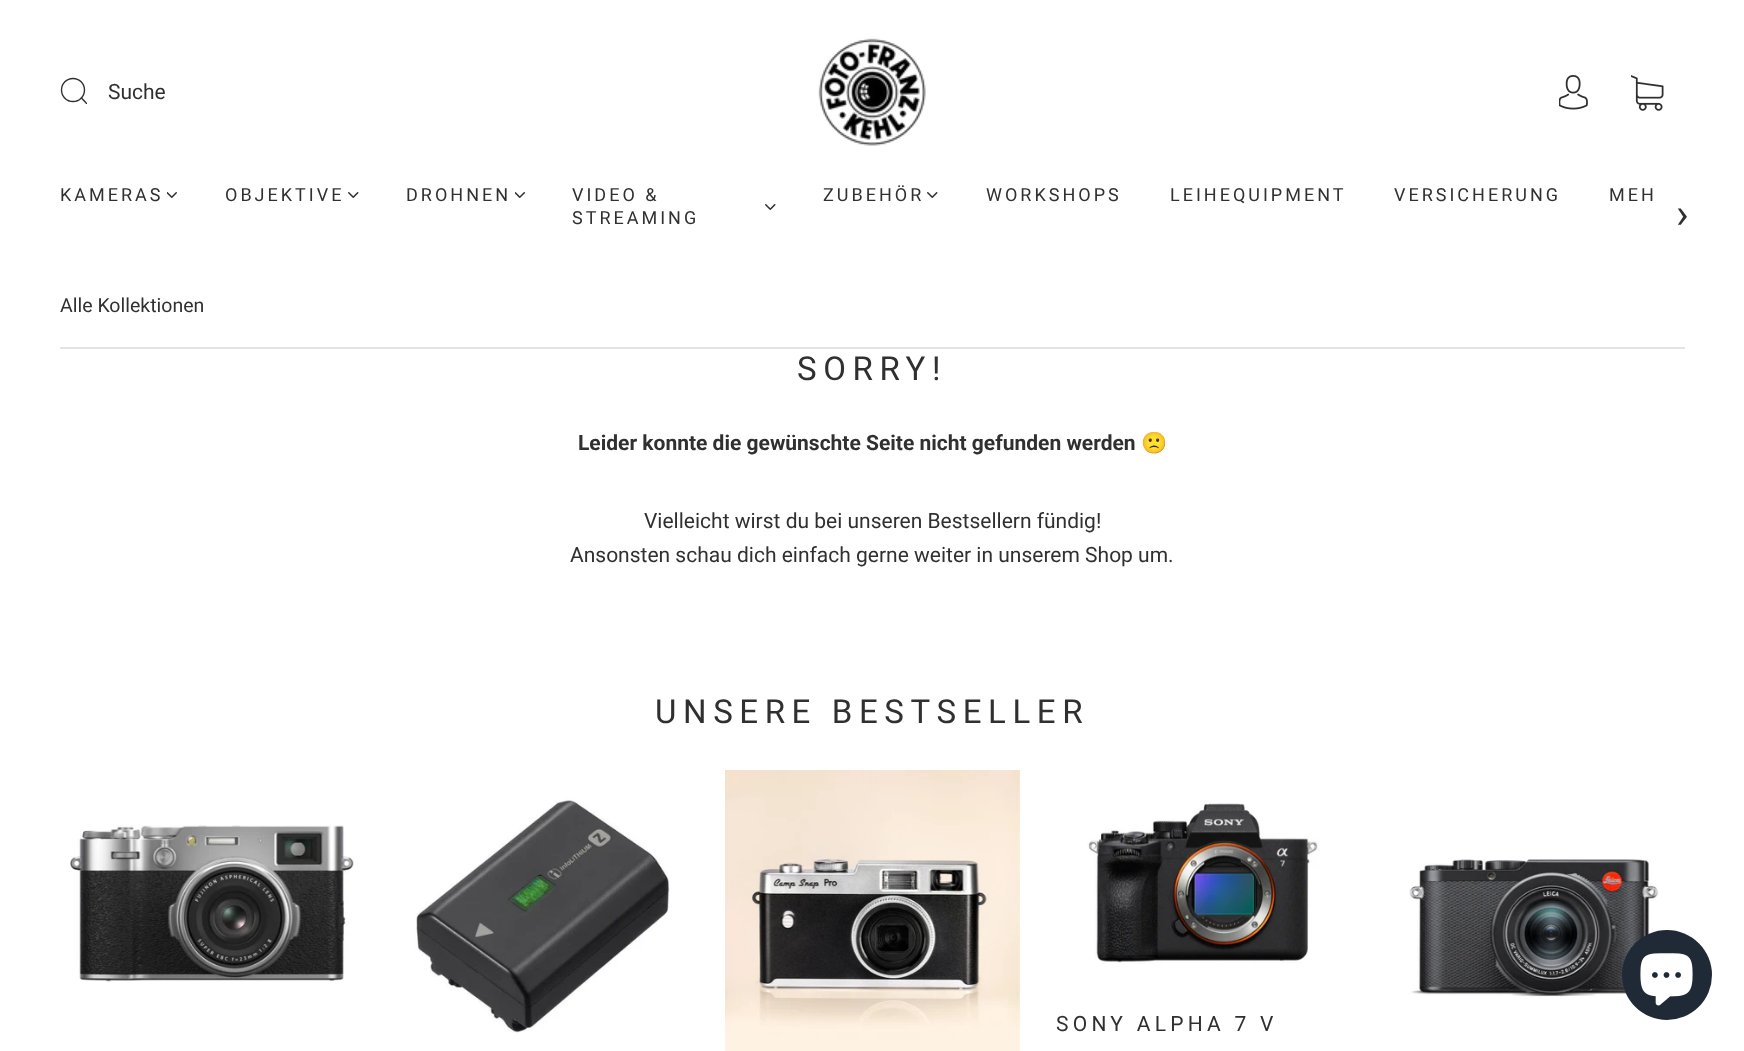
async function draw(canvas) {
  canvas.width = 1744
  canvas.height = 1051
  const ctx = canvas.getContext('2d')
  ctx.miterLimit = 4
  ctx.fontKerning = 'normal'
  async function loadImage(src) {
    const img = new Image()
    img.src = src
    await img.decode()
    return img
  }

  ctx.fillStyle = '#fff'
  ctx.fillRect(0, 0, 1744, 1051)
  ctx.beginPath()
  ctx.arc(73, 90, 11.5, 0, 2 * Math.PI)
  ctx.strokeStyle = '#303030'
  ctx.lineWidth = 1.4
  ctx.stroke()
  ctx.save()
  ctx.beginPath()
  ctx.rect(60, 78, 27, 26)
  ctx.clip()
  ctx.beginPath()
  ctx.moveTo(81, 97.5)
  ctx.lineTo(89, 106)
  ctx.stroke()
  ctx.restore()
  ctx.font = '21px Roboto'
  ctx.fillStyle = '#303030'
  ctx.fillText('Suche', 108, 99)
  ctx.drawImage(await loadImage('image0.png'), 818, 38, 108, 108)
  ctx.drawImage(await loadImage('image1.png'), 1559, 75, 29, 35)
  ctx.drawImage(await loadImage('image2.png'), 1631, 75, 33, 36)
  ctx.letterSpacing = '3px'
  ctx.font = '18px Roboto'
  ctx.fillText('KAMERAS', 60, 201)
  ctx.drawImage(await loadImage('image3.png'), 167, 192, 10, 6)
  ctx.fillText('OBJEKTIVE', 225, 201)
  ctx.drawImage(await loadImage('image4.png'), 348, 192, 11, 6)
  ctx.fillText('DROHNEN', 406, 201)
  ctx.drawImage(await loadImage('image3.png'), 515, 192, 10, 6)
  ctx.fillText('VIDEO &', 572, 201)
  ctx.drawImage(await loadImage('image4.png'), 765, 204, 11, 6)
  ctx.fillText('STREAMING', 572, 224)
  ctx.fillText('ZUBEHÖR', 823, 201)
  ctx.drawImage(await loadImage('image4.png'), 927, 192, 11, 6)
  ctx.fillText('WORKSHOPS', 986, 201)
  ctx.fillText('LEIHEQUIPMENT', 1170, 201)
  ctx.fillText('VERSICHERUNG', 1394, 201)
  ctx.fillText('MEH', 1609, 201)
  ctx.letterSpacing = '0px'
  ctx.font = '42px Roboto'
  ctx.fillText('›', 1676, 228)
  ctx.fillStyle = '#e4e4e4'
  ctx.fillRect(60, 347, 1625, 2)
  ctx.font = '19.5px Roboto'
  ctx.fillStyle = '#303030'
  ctx.fillText('Alle Kollektionen', 60, 312)
  ctx.letterSpacing = '6.6px'
  ctx.font = '33px Roboto'
  ctx.fillText('SORRY!', 797, 380)
  ctx.letterSpacing = '0px'
  ctx.font = 'bold 21px Roboto'
  ctx.fillText('Leider konnte die gewünschte Seite nicht gefunden werden', 578, 450)
  ctx.font = '21px Noto Color Emoji'
  ctx.fillText('🙁', 1141, 450)
  ctx.font = '21px Roboto'
  ctx.fillText('Vielleicht wirst du bei unseren Bestsellern fündig!', 644, 528)
  ctx.fillText('Ansonsten schau dich einfach gerne weiter in unserem Shop um.', 570, 562)
  ctx.letterSpacing = '6.6px'
  ctx.font = '33px Roboto'
  ctx.fillText('UNSERE BESTSELLER', 655, 723)
  ctx.drawImage(await loadImage('image5.png'), 70, 825, 284, 158)
  ctx.drawImage(await loadImage('image6.png'), 415, 797, 255, 236)
  ctx.drawImage(await loadImage('image7.png'), 725, 770, 295, 281)
  ctx.drawImage(await loadImage('image8.png'), 1409, 859, 250, 139)
  ctx.drawImage(await loadImage('image9.png'), 1087, 803, 232, 161)
  ctx.letterSpacing = '4.25px'
  ctx.font = '21px Roboto'
  ctx.fillText('SONY ALPHA 7 V', 1056, 1031)
  ctx.fillStyle = '#202a36'
  ctx.beginPath()
  ctx.arc(1667, 975, 45, 0, 2 * Math.PI)
  ctx.fill()
  ctx.drawImage(await loadImage('image10.png'), 1640, 953, 53, 53)
}

draw(document.querySelector('canvas'))
